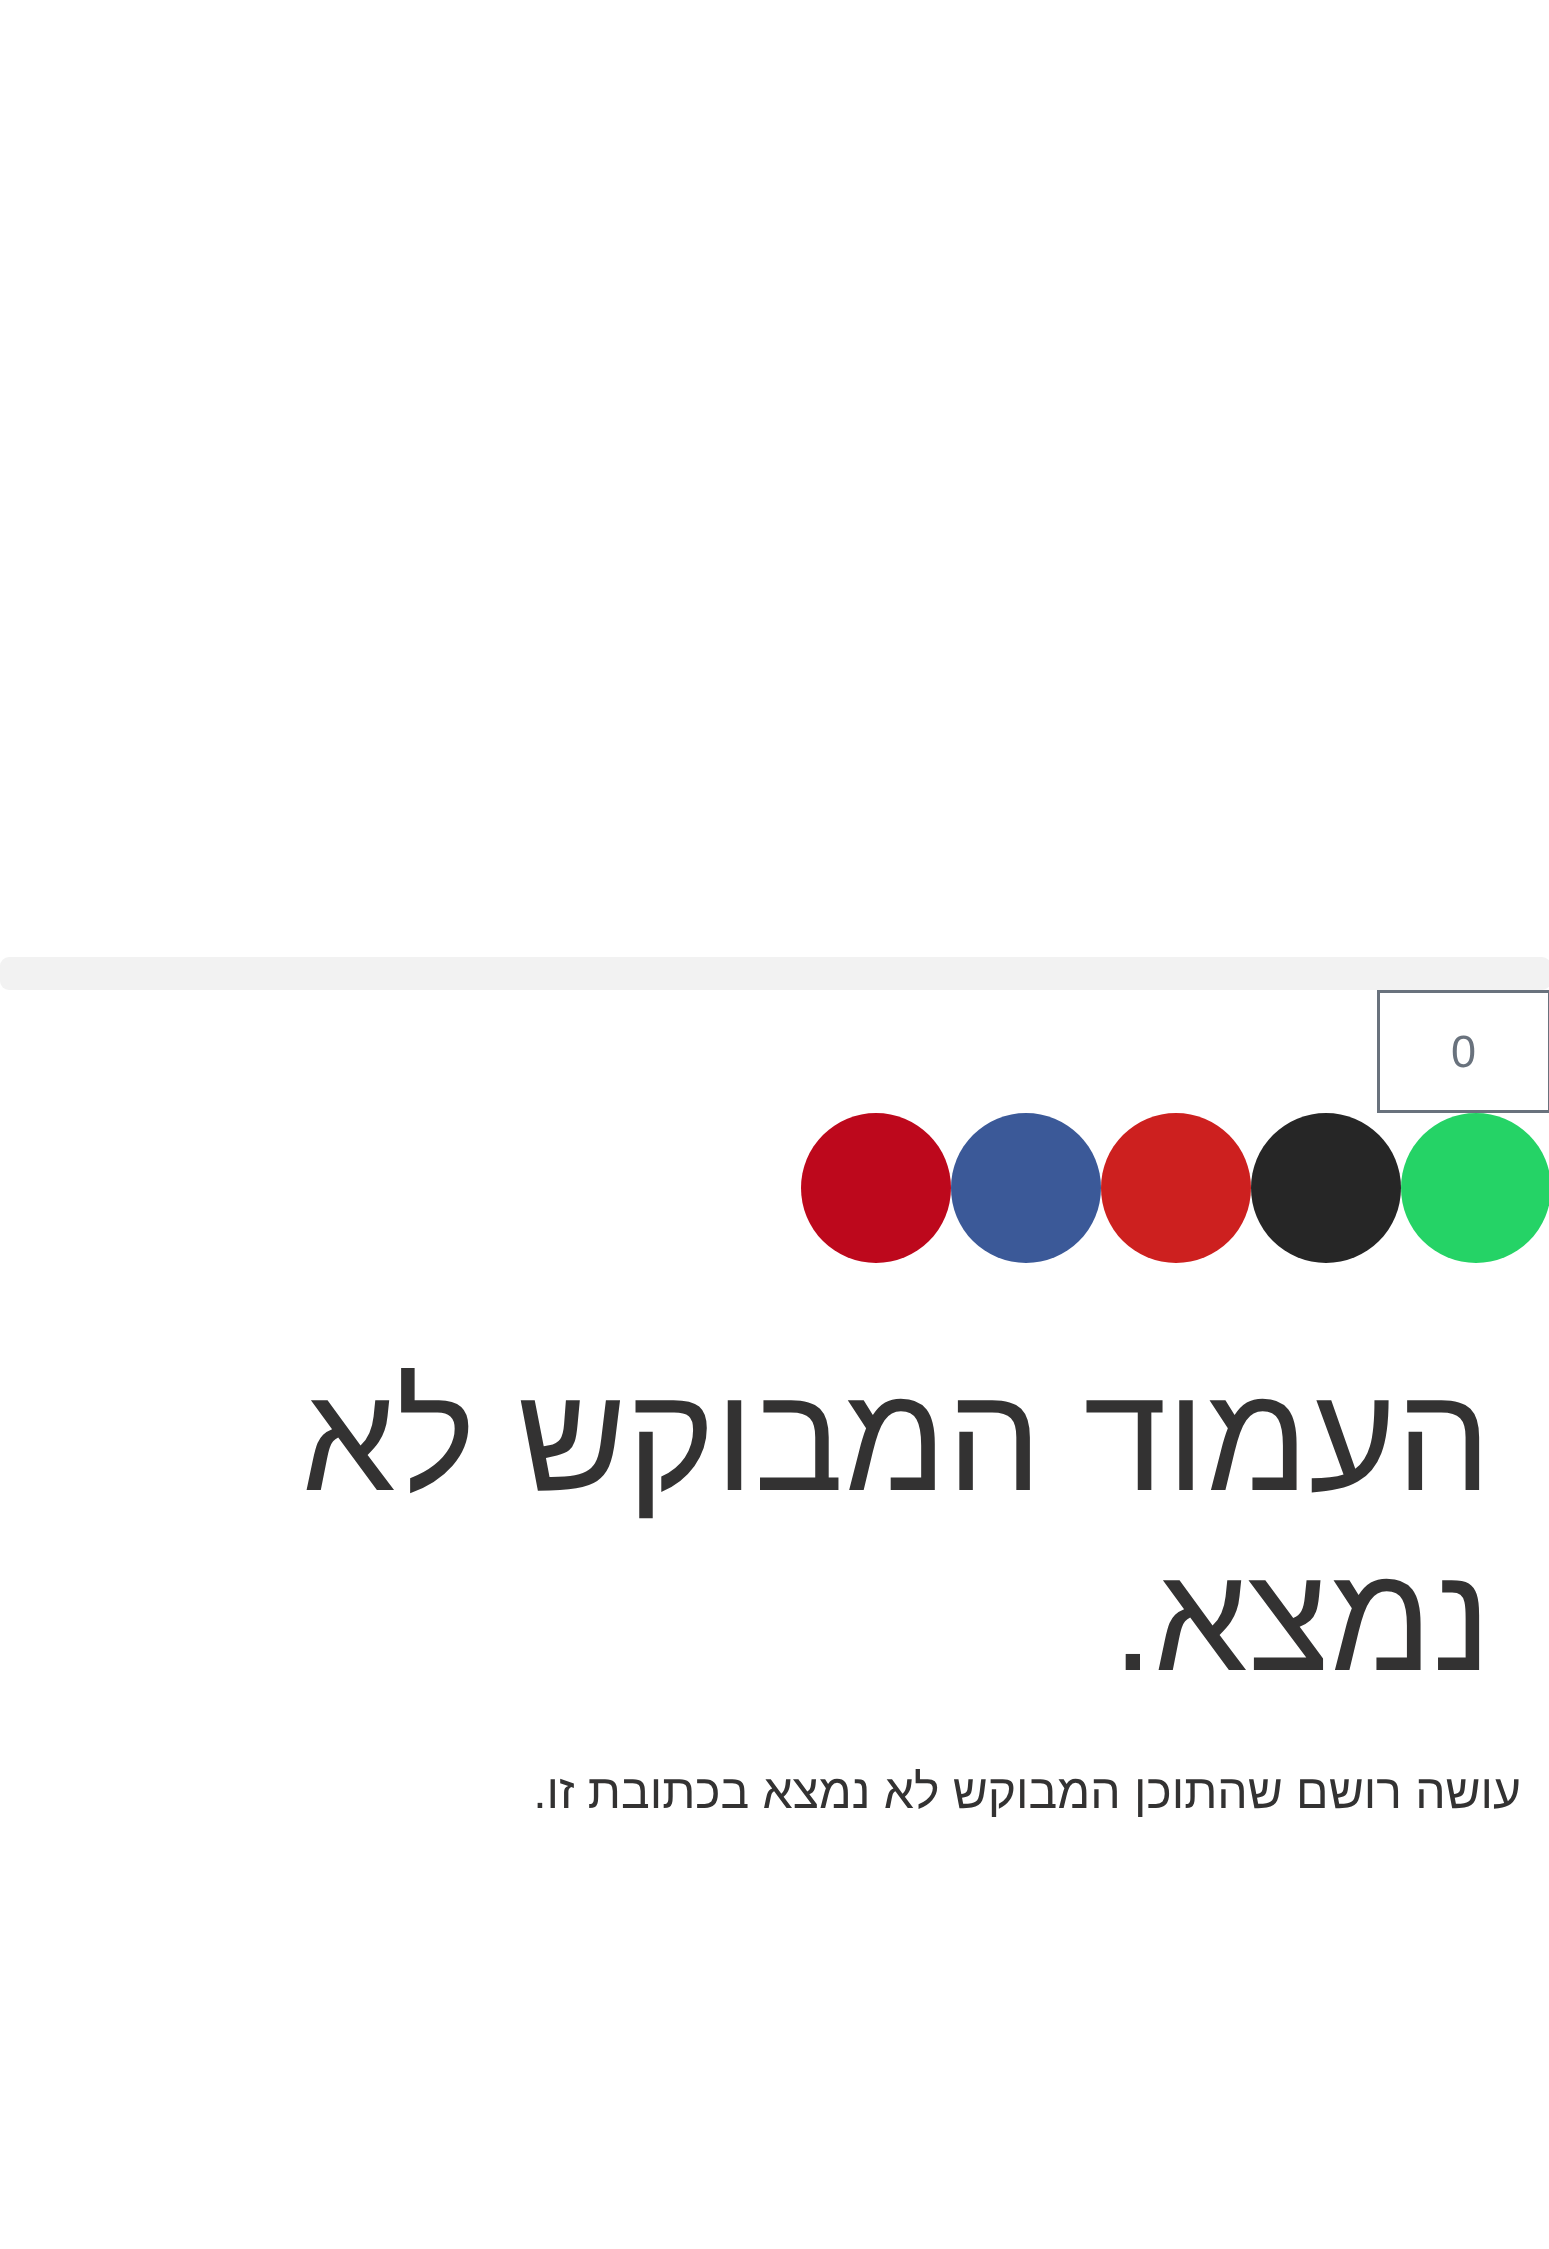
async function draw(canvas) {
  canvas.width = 1549
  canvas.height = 2249
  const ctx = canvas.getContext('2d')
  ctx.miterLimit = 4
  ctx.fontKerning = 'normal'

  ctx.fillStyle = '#fff'
  ctx.fillRect(0, 0, 1549, 2249)
  ctx.fillStyle = '#f2f2f2'
  ctx.beginPath()
  ctx.roundRect(0, 957, 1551, 33, 9)
  ctx.fill()
  ctx.strokeStyle = '#69727d'
  ctx.lineWidth = 3
  ctx.strokeRect(1378.5, 991.5, 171, 120)
  ctx.font = '45px Liberation Sans'
  ctx.fillStyle = '#69727d'
  ctx.fillText('0', 1451, 1067)
  ctx.fillStyle = '#25d366'
  ctx.beginPath()
  ctx.arc(1476, 1188, 75, 0, 2 * Math.PI)
  ctx.fill()
  ctx.fillStyle = '#262626'
  ctx.beginPath()
  ctx.arc(1326, 1188, 75, 0, 2 * Math.PI)
  ctx.fill()
  ctx.fillStyle = '#cd201f'
  ctx.beginPath()
  ctx.arc(1176, 1188, 75, 0, 2 * Math.PI)
  ctx.fill()
  ctx.fillStyle = '#3b5998'
  ctx.beginPath()
  ctx.arc(1026, 1188, 75, 0, 2 * Math.PI)
  ctx.fill()
  ctx.fillStyle = '#bd081c'
  ctx.beginPath()
  ctx.arc(876, 1188, 75, 0, 2 * Math.PI)
  ctx.fill()
  ctx.direction = 'rtl'
  ctx.font = '150px Liberation Sans'
  ctx.fillStyle = '#333232'
  ctx.fillText('העמוד המבוקש לא', 1491, 1490)
  ctx.fillText('נמצא.', 1491, 1670)
  ctx.font = '48px Liberation Sans'
  ctx.fillText('עושה רושם שהתוכן המבוקש לא נמצא בכתובת זו.', 1521, 1808)
}

draw(document.querySelector('canvas'))
